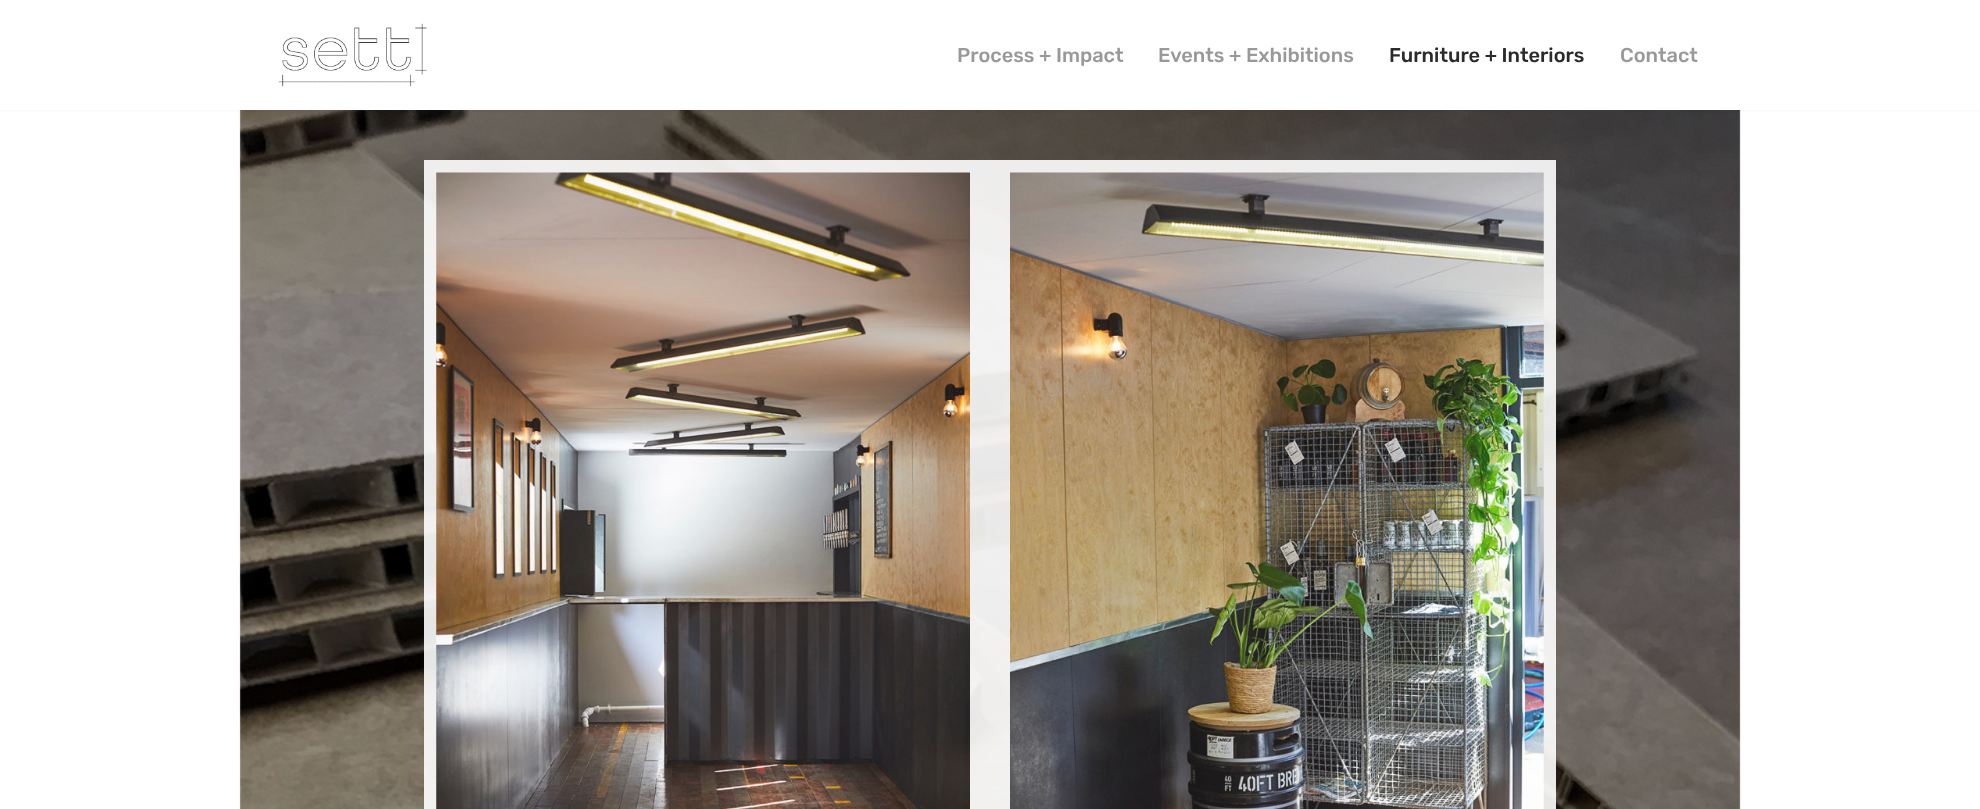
async function draw(canvas) {
  canvas.width = 1980
  canvas.height = 809
  const ctx = canvas.getContext('2d')
  ctx.miterLimit = 4
  ctx.fontKerning = 'normal'
  async function loadImage(src) {
    const img = new Image()
    img.src = src
    await img.decode()
    return img
  }

  ctx.fillStyle = '#fff'
  ctx.fillRect(0, 0, 1980, 809)
  ctx.drawImage(await loadImage('image0.png'), 239, 110, 1502, 699)
  ctx.fillStyle = '#0000001a'
  ctx.filter = 'blur(2px)'
  ctx.beginPath()
  ctx.rect(0, -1, 1980, 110)
  ctx.fill()
  ctx.filter = 'none'
  ctx.fillStyle = '#fff'
  ctx.fillRect(0, 0, 1980, 110)
  ctx.drawImage(await loadImage('image1.png'), 278, 23, 149, 64)
  ctx.font = '500 20px Rubik'
  ctx.fillStyle = '#999'
  ctx.fillText('Process + Impact', 957, 62)
  ctx.fillText('Events + Exhibitions', 1158, 62)
  ctx.fillStyle = '#2b2b2b'
  ctx.fillText('Furniture + Interiors', 1389, 62)
  ctx.fillStyle = '#999'
  ctx.fillText('Contact', 1620, 62)
  ctx.fillStyle = '#ffffffe6'
  ctx.fillRect(424, 160, 1132, 649)
  ctx.drawImage(await loadImage('image2.png'), 436, 172, 534, 637)
  ctx.drawImage(await loadImage('image3.png'), 1010, 172, 534, 637)
}

draw(document.querySelector('canvas'))
